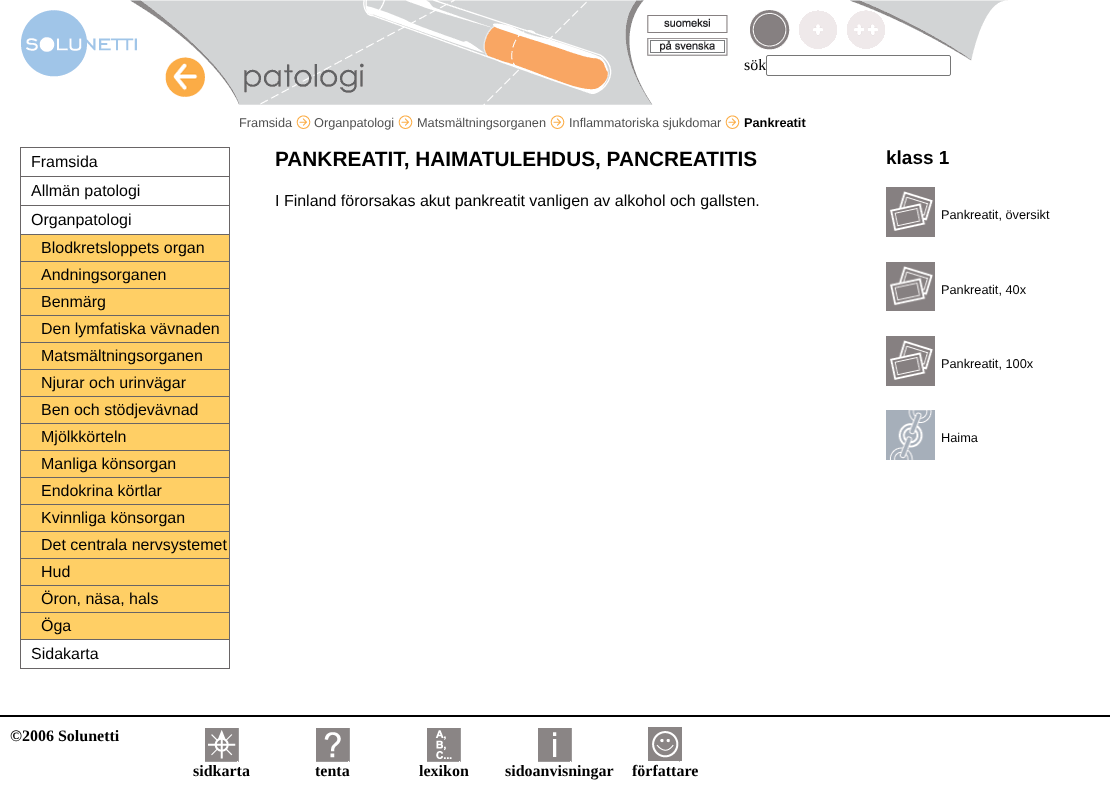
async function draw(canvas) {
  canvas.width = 1110
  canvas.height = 795
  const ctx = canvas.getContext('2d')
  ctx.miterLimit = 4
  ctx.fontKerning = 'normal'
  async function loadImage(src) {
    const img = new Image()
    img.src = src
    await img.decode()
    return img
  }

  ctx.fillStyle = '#fff'
  ctx.fillRect(0, 0, 1110, 795)
  ctx.drawImage(await loadImage('image0.png'), 130, 0, 878, 105)
  ctx.drawImage(await loadImage('image1.png'), 21, 10, 116, 67)
  ctx.drawImage(await loadImage('image2.png'), 165, 57, 40, 40)
  ctx.drawImage(await loadImage('image3.png'), 647, 15, 81, 18)
  ctx.drawImage(await loadImage('image4.png'), 647, 38, 81, 18)
  ctx.drawImage(await loadImage('image5.png'), 750, 10, 40, 40)
  ctx.drawImage(await loadImage('image6.png'), 799, 10, 38, 39)
  ctx.drawImage(await loadImage('image7.png'), 847, 10, 38, 39)
  ctx.font = '16px Liberation Serif'
  ctx.fillStyle = '#000'
  ctx.fillText('sök', 744, 70)
  ctx.fillStyle = '#fff'
  ctx.beginPath()
  ctx.roundRect(766.5, 55.5, 184, 20, 1.5)
  ctx.fill()
  ctx.strokeStyle = '#767676'
  ctx.stroke()
  ctx.font = '12.75px Liberation Sans'
  ctx.fillStyle = '#505050'
  ctx.fillText('Framsida', 239, 127)
  ctx.drawImage(await loadImage('image8.png'), 296, 115, 15, 14)
  ctx.fillText('Organpatologi', 314, 127)
  ctx.drawImage(await loadImage('image8.png'), 398, 115, 15, 14)
  ctx.fillText('Matsmältningsorganen', 417, 127)
  ctx.drawImage(await loadImage('image8.png'), 550, 115, 15, 14)
  ctx.fillText('Inflammatoriska sjukdomar', 569, 127)
  ctx.drawImage(await loadImage('image8.png'), 725, 115, 15, 14)
  ctx.font = 'bold 12.75px Liberation Sans'
  ctx.fillStyle = '#000'
  ctx.fillText('Pankreatit', 744, 127)
  ctx.fillStyle = '#696566'
  ctx.fillRect(229, 147, 1, 522)
  ctx.fillRect(20, 668, 210, 1)
  ctx.fillRect(20, 147, 1, 522)
  ctx.fillRect(21, 147, 208, 1)
  ctx.font = '16px Liberation Sans'
  ctx.fillStyle = '#000'
  ctx.fillText('Framsida', 31, 167)
  ctx.fillStyle = '#696566'
  ctx.fillRect(21, 176, 208, 1)
  ctx.fillStyle = '#000'
  ctx.fillText('Allmän patologi', 31, 196)
  ctx.fillStyle = '#696566'
  ctx.fillRect(21, 205, 208, 1)
  ctx.fillStyle = '#000'
  ctx.fillText('Organpatologi', 31, 225)
  ctx.fillStyle = '#ffcf65'
  ctx.fillRect(21, 235, 208, 404)
  ctx.fillStyle = '#696566'
  ctx.fillRect(21, 234, 208, 1)
  ctx.fillStyle = '#000'
  ctx.fillText('Blodkretsloppets organ', 41, 253)
  ctx.fillStyle = '#696566'
  ctx.fillRect(21, 261, 208, 1)
  ctx.fillStyle = '#000'
  ctx.fillText('Andningsorganen', 41, 280)
  ctx.fillStyle = '#696566'
  ctx.fillRect(21, 288, 208, 1)
  ctx.fillStyle = '#000'
  ctx.fillText('Benmärg', 41, 307)
  ctx.fillStyle = '#696566'
  ctx.fillRect(21, 315, 208, 1)
  ctx.fillStyle = '#000'
  ctx.fillText('Den lymfatiska vävnaden', 41, 334)
  ctx.fillStyle = '#696566'
  ctx.fillRect(21, 342, 208, 1)
  ctx.fillStyle = '#000'
  ctx.fillText('Matsmältningsorganen', 41, 361)
  ctx.fillStyle = '#696566'
  ctx.fillRect(21, 369, 208, 1)
  ctx.fillStyle = '#000'
  ctx.fillText('Njurar och urinvägar', 41, 388)
  ctx.fillStyle = '#696566'
  ctx.fillRect(21, 396, 208, 1)
  ctx.fillStyle = '#000'
  ctx.fillText('Ben och stödjevävnad', 41, 415)
  ctx.fillStyle = '#696566'
  ctx.fillRect(21, 423, 208, 1)
  ctx.fillStyle = '#000'
  ctx.fillText('Mjölkkörteln', 41, 442)
  ctx.fillStyle = '#696566'
  ctx.fillRect(21, 450, 208, 1)
  ctx.fillStyle = '#000'
  ctx.fillText('Manliga könsorgan', 41, 469)
  ctx.fillStyle = '#696566'
  ctx.fillRect(21, 477, 208, 1)
  ctx.fillStyle = '#000'
  ctx.fillText('Endokrina körtlar', 41, 496)
  ctx.fillStyle = '#696566'
  ctx.fillRect(21, 504, 208, 1)
  ctx.fillStyle = '#000'
  ctx.fillText('Kvinnliga könsorgan', 41, 523)
  ctx.fillStyle = '#696566'
  ctx.fillRect(21, 531, 208, 1)
  ctx.fillStyle = '#000'
  ctx.fillText('Det centrala nervsystemet', 41, 550)
  ctx.fillStyle = '#696566'
  ctx.fillRect(21, 558, 208, 1)
  ctx.fillStyle = '#000'
  ctx.fillText('Hud', 41, 577)
  ctx.fillStyle = '#696566'
  ctx.fillRect(21, 585, 208, 1)
  ctx.fillStyle = '#000'
  ctx.fillText('Öron, näsa, hals', 41, 604)
  ctx.fillStyle = '#696566'
  ctx.fillRect(21, 612, 208, 1)
  ctx.fillStyle = '#000'
  ctx.fillText('Öga', 41, 631)
  ctx.fillStyle = '#696566'
  ctx.fillRect(21, 639, 208, 1)
  ctx.fillStyle = '#000'
  ctx.fillText('Sidakarta', 31, 659)
  ctx.font = 'bold 20.8px Liberation Sans'
  ctx.fillText('PANKREATIT, HAIMATULEHDUS, PANCREATITIS', 275, 166)
  ctx.font = '16px Liberation Sans'
  ctx.fillText('I Finland förorsakas akut pankreatit vanligen av alkohol och gallsten.', 275, 206)
  ctx.font = 'bold 19px Liberation Sans'
  ctx.fillText('klass 1', 886, 164)
  ctx.drawImage(await loadImage('image9.png'), 886, 187, 49, 50)
  ctx.font = '12.75px Liberation Sans'
  ctx.fillText('Pankreatit, översikt', 941, 219)
  ctx.drawImage(await loadImage('image10.png'), 886, 262, 49, 49)
  ctx.fillText('Pankreatit, 40x', 941, 294)
  ctx.drawImage(await loadImage('image9.png'), 886, 336, 49, 50)
  ctx.fillText('Pankreatit, 100x', 941, 368)
  ctx.drawImage(await loadImage('image11.png'), 886, 410, 49, 50)
  ctx.fillText('Haima', 941, 442)
  ctx.fillRect(0, 715, 1110, 2)
  ctx.font = 'bold 16px Liberation Serif'
  ctx.fillText('©2006 Solunetti', 10, 741)
  ctx.drawImage(await loadImage('image12.png'), 205, 728, 34, 34)
  ctx.fillText('sidkarta', 193, 776)
  ctx.drawImage(await loadImage('image13.png'), 316, 728, 34, 34)
  ctx.fillText('tenta', 315, 776)
  ctx.drawImage(await loadImage('image14.png'), 427, 728, 34, 34)
  ctx.fillText('lexikon', 419, 776)
  ctx.drawImage(await loadImage('image15.png'), 538, 728, 34, 34)
  ctx.fillText('sidoanvisningar', 505, 776)
  ctx.drawImage(await loadImage('image16.png'), 648, 727, 34, 35)
  ctx.fillText('författare', 632, 776)
}

draw(document.querySelector('canvas'))
